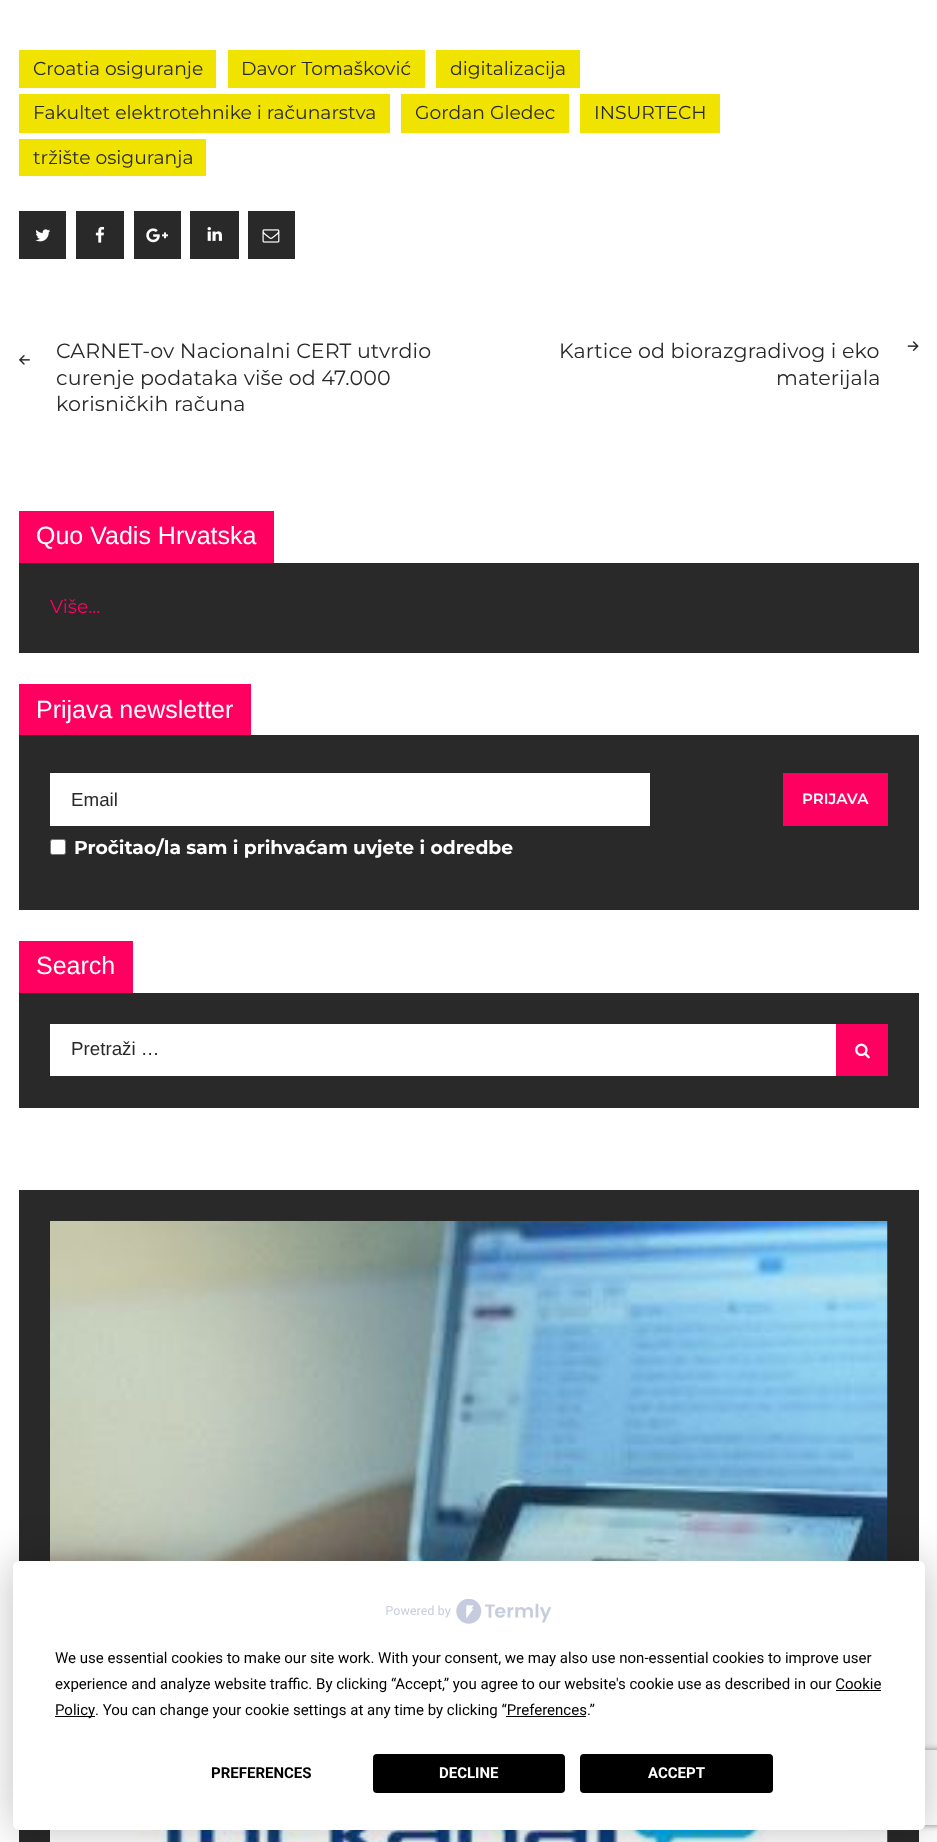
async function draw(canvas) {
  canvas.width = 937
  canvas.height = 1842
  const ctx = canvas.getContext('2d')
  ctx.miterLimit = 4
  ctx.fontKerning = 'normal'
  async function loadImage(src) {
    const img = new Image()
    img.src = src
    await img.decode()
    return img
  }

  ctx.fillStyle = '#fff'
  ctx.fillRect(0, 0, 937, 1842)
  ctx.fillStyle = '#f1e300'
  ctx.fillRect(19, 50, 197, 38)
  ctx.font = '18.75px Montserrat'
  ctx.fillStyle = '#292929'
  ctx.fillText('Croatia osiguranje', 33, 75)
  ctx.fillStyle = '#f1e300'
  ctx.fillRect(228, 50, 197, 38)
  ctx.fillStyle = '#292929'
  ctx.fillText('Davor Tomašković', 241, 75)
  ctx.fillStyle = '#f1e300'
  ctx.fillRect(436, 50, 144, 38)
  ctx.fillStyle = '#292929'
  ctx.fillText('digitalizacija', 450, 75)
  ctx.fillStyle = '#f1e300'
  ctx.fillRect(19, 94, 371, 39)
  ctx.fillStyle = '#292929'
  ctx.fillText('Fakultet elektrotehnike i računarstva', 33, 119)
  ctx.fillStyle = '#f1e300'
  ctx.fillRect(401, 94, 168, 39)
  ctx.fillStyle = '#292929'
  ctx.fillText('Gordan Gledec', 415, 119)
  ctx.fillStyle = '#f1e300'
  ctx.fillRect(580, 94, 140, 39)
  ctx.fillStyle = '#292929'
  ctx.fillText('INSURTECH', 594, 119)
  ctx.fillStyle = '#f1e300'
  ctx.fillRect(19, 139, 187, 37)
  ctx.fillStyle = '#292929'
  ctx.fillText('tržište osiguranja', 33, 164)
  ctx.fillRect(19, 211, 47, 48)
  ctx.drawImage(await loadImage('image0.png'), 35, 229, 16, 13)
  ctx.fillRect(76, 211, 48, 48)
  ctx.drawImage(await loadImage('image1.png'), 95, 226, 10, 17)
  ctx.fillRect(134, 211, 47, 48)
  ctx.drawImage(await loadImage('image2.png'), 146, 228, 22, 15)
  ctx.fillRect(190, 211, 49, 48)
  ctx.drawImage(await loadImage('image3.png'), 207, 227, 15, 14)
  ctx.fillRect(248, 211, 47, 48)
  ctx.drawImage(await loadImage('image4.png'), 262, 229, 18, 14)
  ctx.drawImage(await loadImage('image5.png'), 19, 355, 11, 10)
  ctx.letterSpacing = '0.1px'
  ctx.font = '20.6px Montserrat'
  ctx.fillText('CARNET-ov Nacionalni CERT utvrdio', 56, 358)
  ctx.fillText('curenje podataka više od 47.000', 56, 385)
  ctx.fillText('korisničkih računa', 56, 411)
  ctx.fillText('Kartice od biorazgradivog i eko', 559, 358)
  ctx.fillText('materijala', 776, 385)
  ctx.drawImage(await loadImage('image6.png'), 907, 341, 12, 10)
  ctx.fillRect(19, 563, 900, 90)
  ctx.fillStyle = '#ff0060'
  ctx.fillRect(19, 511, 255, 52)
  ctx.letterSpacing = '0px'
  ctx.font = '25px Liberation Sans'
  ctx.fillStyle = '#fff'
  ctx.fillText('Quo Vadis Hrvatska', 36, 544)
  ctx.font = '18.75px Montserrat'
  ctx.fillStyle = '#ff0060'
  ctx.fillText('Više...', 50, 613)
  ctx.fillStyle = '#292929'
  ctx.fillRect(19, 735, 900, 175)
  ctx.fillStyle = '#ff0060'
  ctx.fillRect(19, 684, 232, 51)
  ctx.font = '25px Liberation Sans'
  ctx.fillStyle = '#fff'
  ctx.fillText('Prijava newsletter', 36, 718)
  ctx.fillRect(50, 773, 600, 53)
  ctx.font = '18.75px Liberation Sans'
  ctx.fillStyle = '#292929'
  ctx.fillText('Email', 71, 806)
  ctx.fillStyle = '#ff0060'
  ctx.fillRect(783, 773, 105, 53)
  ctx.font = '600 15px Montserrat'
  ctx.fillStyle = '#fff'
  ctx.fillText('PRIJAVA', 802, 804)
  ctx.beginPath()
  ctx.roundRect(50.5, 839.5, 15, 15, 2)
  ctx.fill()
  ctx.strokeStyle = '#767676'
  ctx.stroke()
  ctx.font = 'bold 18.75px Montserrat'
  ctx.fillText('Pročitao/la sam i prihvaćam uvjete i odredbe', 74, 854)
  ctx.fillStyle = '#292929'
  ctx.fillRect(19, 993, 900, 115)
  ctx.fillStyle = '#ff0060'
  ctx.fillRect(19, 941, 114, 52)
  ctx.font = '25px Liberation Sans'
  ctx.fillStyle = '#fff'
  ctx.fillText('Search', 36, 974)
  ctx.fillRect(50, 1024, 786, 52)
  ctx.font = '18.75px Liberation Sans'
  ctx.fillStyle = '#292929'
  ctx.fillText('Pretraži …', 71, 1055)
  ctx.fillStyle = '#ff0060'
  ctx.fillRect(836, 1024, 52, 52)
  ctx.drawImage(await loadImage('image7.png'), 855, 1043, 15, 16)
  ctx.fillStyle = '#292929'
  ctx.fillRect(19, 1190, 900, 652)
  ctx.drawImage(await loadImage('image8.png'), 50, 1221, 838, 621)
  ctx.fillStyle = '#00000040'
  ctx.filter = 'blur(22px)'
  ctx.beginPath()
  ctx.roundRect(13, 1561, 912, 269, 6)
  ctx.fill()
  ctx.filter = 'none'
  ctx.save()
  ctx.beginPath()
  ctx.moveTo(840, 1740)
  ctx.lineTo(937, 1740)
  ctx.lineTo(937, 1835)
  ctx.lineTo(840, 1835)
  ctx.closePath()
  ctx.moveTo(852.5, 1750)
  ctx.lineTo(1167.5, 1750)
  ctx.bezierCurveTo(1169, 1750, 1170, 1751, 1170, 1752.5)
  ctx.lineTo(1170, 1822.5)
  ctx.bezierCurveTo(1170, 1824, 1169, 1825, 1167.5, 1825)
  ctx.lineTo(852.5, 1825)
  ctx.bezierCurveTo(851, 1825, 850, 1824, 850, 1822.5)
  ctx.lineTo(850, 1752.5)
  ctx.bezierCurveTo(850, 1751, 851, 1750, 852.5, 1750)
  ctx.closePath()
  ctx.clip('evenodd')
  ctx.fillStyle = '#808080'
  ctx.filter = 'blur(3px)'
  ctx.beginPath()
  ctx.roundRect(850, 1750, 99, 75, 2.5)
  ctx.fill()
  ctx.filter = 'none'
  ctx.restore()
  ctx.fillStyle = '#fff'
  ctx.beginPath()
  ctx.roundRect(13, 1561, 912, 269, 6)
  ctx.fill()
  ctx.drawImage(await loadImage('image9.png'), 386, 1599, 165, 25)
  ctx.font = '15px Roboto'
  ctx.fillStyle = '#000'
  ctx.fillText('We use essential cookies to make our site work. With your consent, we may also use non-essential cookies to improve user', 55, 1663)
  ctx.fillText('experience and analyze website traffic. By clicking “Accept,” you agree to our website\'s cookie use as described in our Cookie', 55, 1689)
  ctx.fillRect(55, 1716, 40, 1)
  ctx.fillText('Policy', 55, 1715)
  ctx.fillRect(836, 1690, 45, 1)
  ctx.fillText('. You can change your cookie settings at any time by clicking “Preferences.”', 95, 1715)
  ctx.fillRect(506, 1716, 80, 1)
  ctx.font = 'bold 15px Roboto'
  ctx.fillText('PREFERENCES', 211, 1778)
  ctx.beginPath()
  ctx.roundRect(373, 1754, 192, 39, 4)
  ctx.fill()
  ctx.fillStyle = '#fff'
  ctx.fillText('DECLINE', 439, 1778)
  ctx.fillStyle = '#000'
  ctx.beginPath()
  ctx.roundRect(580, 1754, 193, 39, 4)
  ctx.fill()
  ctx.fillStyle = '#fff'
  ctx.fillText('ACCEPT', 648, 1778)
}

draw(document.querySelector('canvas'))
